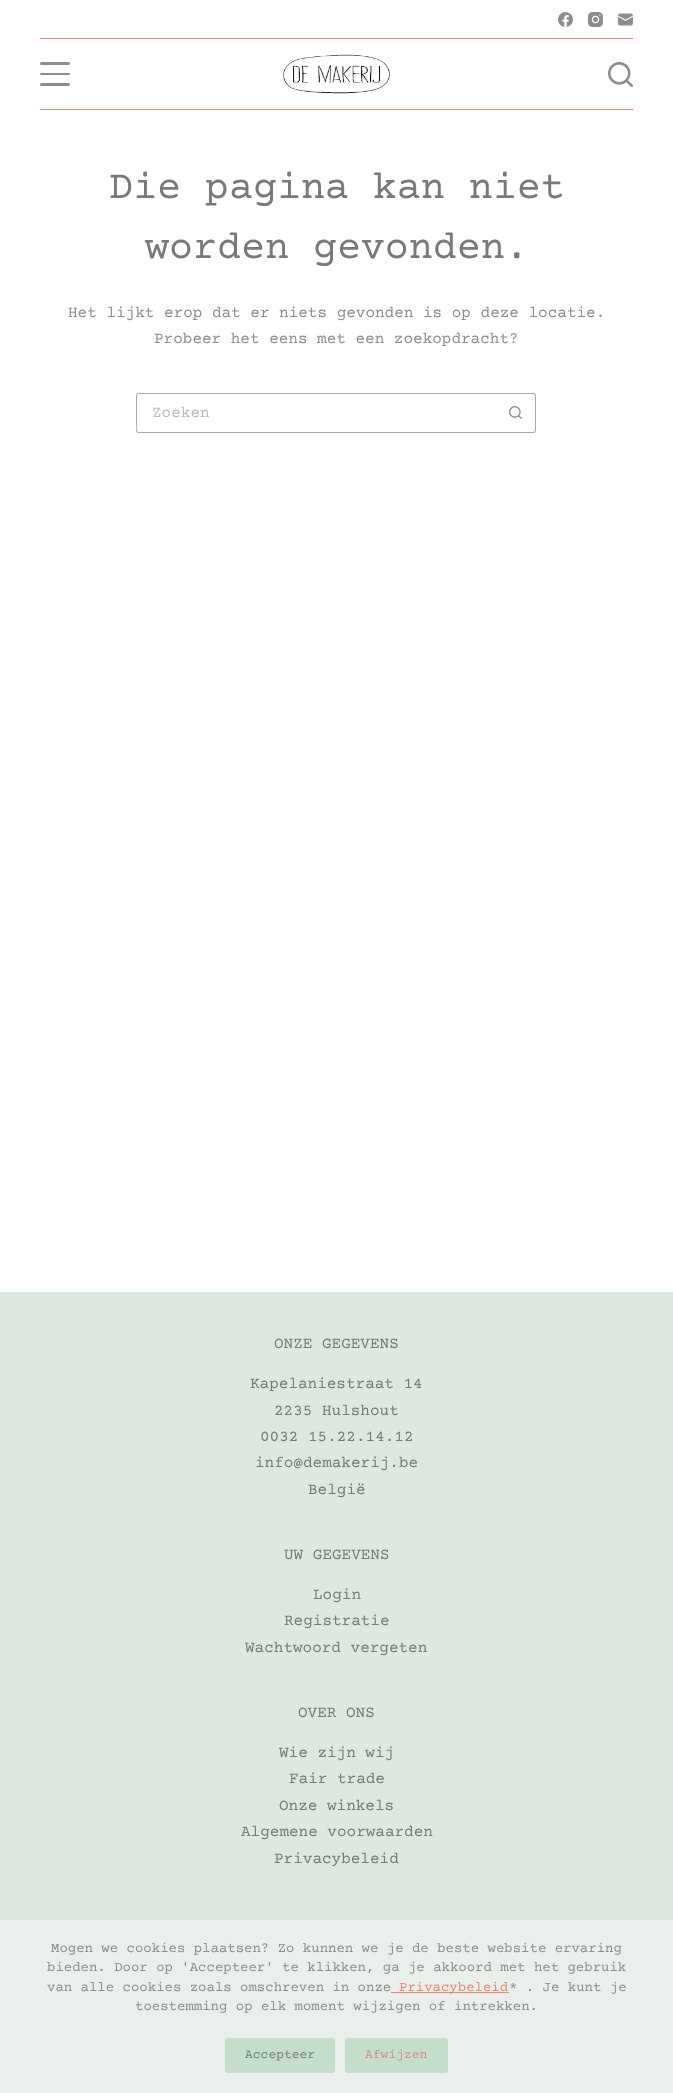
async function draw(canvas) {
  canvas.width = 673
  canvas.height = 2093
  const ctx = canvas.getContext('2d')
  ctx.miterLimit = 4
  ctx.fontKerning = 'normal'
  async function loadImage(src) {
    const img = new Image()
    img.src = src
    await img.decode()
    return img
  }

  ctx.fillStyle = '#fff'
  ctx.fillRect(0, 0, 673, 2093)
  ctx.fillStyle = '#d88a8a'
  ctx.fillRect(40, 38, 593, 1)
  ctx.drawImage(await loadImage('image0.png'), 558, 12, 15, 15)
  ctx.drawImage(await loadImage('image1.png'), 588, 12, 15, 15)
  ctx.drawImage(await loadImage('image2.png'), 618, 13, 15, 13)
  ctx.fillRect(40, 109, 593, 1)
  ctx.fillStyle = '#8d8d8d'
  ctx.beginPath()
  ctx.roundRect(40, 62, 30, 3, 1.5)
  ctx.fill()
  ctx.beginPath()
  ctx.roundRect(40, 73, 30, 2, 1)
  ctx.fill()
  ctx.beginPath()
  ctx.roundRect(40, 83, 30, 3, 1.5)
  ctx.fill()
  ctx.drawImage(await loadImage('image3.png'), 283, 54, 107, 40)
  ctx.drawImage(await loadImage('image4.png'), 608, 62, 25, 25)
  ctx.font = '40px Courier Prime'
  ctx.fillStyle = '#797979'
  ctx.fillText('Die pagina kan niet', 109, 198)
  ctx.fillText('worden gevonden.', 145, 258)
  ctx.font = '16px Courier Prime'
  ctx.fillStyle = '#8d8d8d'
  ctx.fillText('Het lijkt erop dat er niets gevonden is op deze locatie.', 68, 317)
  ctx.fillText('Probeer het eens met een zoekopdracht?', 154, 343)
  ctx.fillStyle = '#9fb3a4'
  ctx.beginPath()
  ctx.moveTo(139, 393)
  ctx.lineTo(496, 393)
  ctx.lineTo(496, 433)
  ctx.lineTo(139, 433)
  ctx.bezierCurveTo(137, 433, 136, 432, 136, 430)
  ctx.lineTo(136, 396)
  ctx.bezierCurveTo(136, 394, 137, 393, 139, 393)
  ctx.closePath()
  ctx.moveTo(139, 394)
  ctx.lineTo(496, 394)
  ctx.lineTo(496, 432)
  ctx.lineTo(138, 432)
  ctx.bezierCurveTo(136, 430, 137, 425, 137, 424)
  ctx.lineTo(137, 396)
  ctx.lineTo(138, 394)
  ctx.closePath()
  ctx.fill('evenodd')
  ctx.fillStyle = '#bbb'
  ctx.fillText('Zoeken', 152, 417)
  ctx.fillStyle = '#9fb3a4'
  ctx.beginPath()
  ctx.moveTo(496, 393)
  ctx.lineTo(533, 393)
  ctx.bezierCurveTo(535, 393, 536, 394, 536, 396)
  ctx.lineTo(536, 430)
  ctx.bezierCurveTo(536, 432, 535, 433, 533, 433)
  ctx.lineTo(496, 433)
  ctx.closePath()
  ctx.moveTo(496, 394)
  ctx.lineTo(533, 394)
  ctx.bezierCurveTo(534, 394, 535, 395, 535, 396)
  ctx.lineTo(535, 430)
  ctx.bezierCurveTo(535, 431, 534, 432, 533, 432)
  ctx.lineTo(496, 432)
  ctx.closePath()
  ctx.fill('evenodd')
  ctx.drawImage(await loadImage('image5.png'), 509, 406, 13, 13)
  ctx.fillStyle = '#dde9df'
  ctx.fillRect(0, 1292, 673, 628)
  ctx.fillStyle = '#797979'
  ctx.fillText('ONZE GEGEVENS', 274, 1348)
  ctx.fillText('Kapelaniestraat 14', 250, 1388)
  ctx.fillText('2235 Hulshout', 274, 1415)
  ctx.fillText('0032 15.22.14.12', 260, 1441)
  ctx.fillText('info@demakerij.be', 255, 1467)
  ctx.fillText('België', 308, 1494)
  ctx.fillText('UW GEGEVENS', 284, 1559)
  ctx.fillText('Login', 313, 1599)
  ctx.fillText('Registratie', 284, 1625)
  ctx.fillText('Wachtwoord vergeten', 245, 1652)
  ctx.fillText('OVER ONS', 298, 1717)
  ctx.fillText('Wie zijn wij', 279, 1757)
  ctx.fillText('Fair trade', 289, 1783)
  ctx.fillText('Onze winkels', 279, 1810)
  ctx.fillText('Algemene voorwaarden', 241, 1836)
  ctx.fillText('Privacybeleid', 274, 1863)
  ctx.fillStyle = '#e9efea'
  ctx.fillRect(0, 1920, 673, 173)
  ctx.font = '14px Courier Prime'
  ctx.fillStyle = '#8d8d8d'
  ctx.fillText('Mogen we cookies plaatsen? Zo kunnen we je de beste website ervaring', 51, 1952)
  ctx.fillText('bieden. Door op \'Accepteer\' te klikken, ga je akkoord met het gebruik', 47, 1971)
  ctx.fillText('van alle cookies zoals omschreven in onze', 47, 1991)
  ctx.fillStyle = '#ee856f'
  ctx.fillRect(391, 1992, 118, 1)
  ctx.fillText('Privacybeleid', 399, 1991)
  ctx.fillStyle = '#8d8d8d'
  ctx.fillText('* . Je kunt je', 509, 1991)
  ctx.fillText('toestemming op elk moment wijzigen of intrekken.', 135, 2010)
  ctx.fillStyle = '#c5decb'
  ctx.beginPath()
  ctx.roundRect(225, 2038, 110, 35, 3)
  ctx.fill()
  ctx.font = '13px Courier Prime'
  ctx.fillStyle = '#797979'
  ctx.fillText('Accepteer', 245, 2058)
  ctx.fillStyle = '#c5decb'
  ctx.beginPath()
  ctx.roundRect(345, 2038, 103, 35, 3)
  ctx.fill()
  ctx.fillStyle = '#d88a8a'
  ctx.fillText('Afwijzen', 365, 2058)
}

draw(document.querySelector('canvas'))
